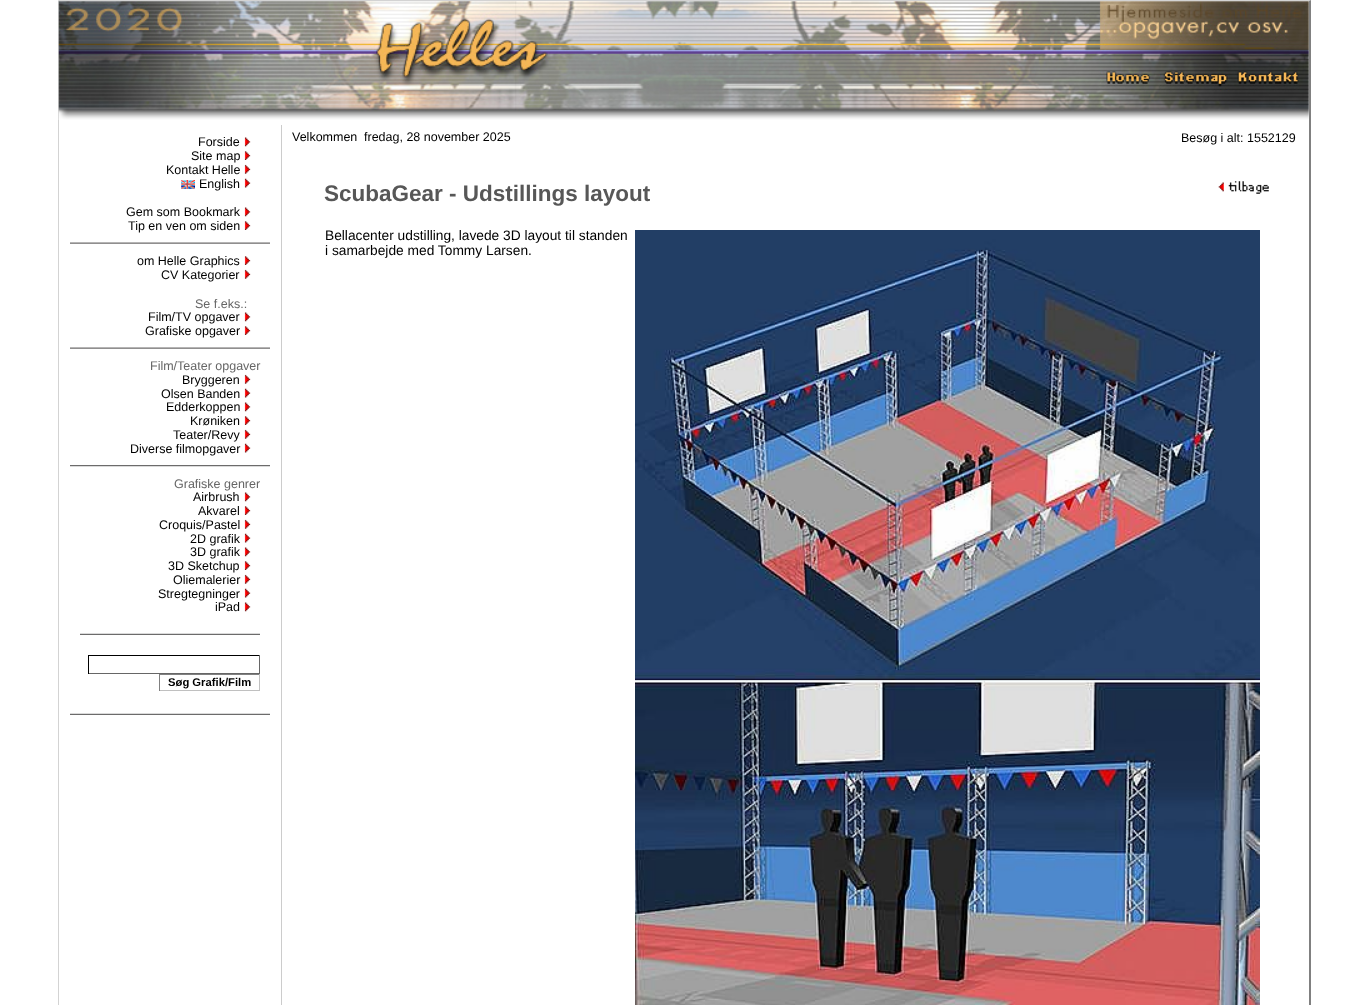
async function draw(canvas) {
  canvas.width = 1368
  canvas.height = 1005
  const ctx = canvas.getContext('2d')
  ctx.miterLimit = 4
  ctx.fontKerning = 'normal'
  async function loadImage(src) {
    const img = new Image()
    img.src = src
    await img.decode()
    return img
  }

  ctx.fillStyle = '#fff'
  ctx.fillRect(0, 0, 1368, 1005)
  ctx.fillStyle = '#d3d3d3'
  ctx.beginPath()
  ctx.moveTo(58, 0)
  ctx.lineTo(1311, 0)
  ctx.lineTo(1309, 1)
  ctx.lineTo(59, 1)
  ctx.closePath()
  ctx.fill()
  ctx.fillStyle = '#808080'
  ctx.beginPath()
  ctx.moveTo(1311, 0)
  ctx.lineTo(1311, 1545)
  ctx.lineTo(1309, 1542)
  ctx.lineTo(1309, 1)
  ctx.closePath()
  ctx.fill()
  ctx.fillStyle = '#d3d3d3'
  ctx.beginPath()
  ctx.moveTo(58, 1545)
  ctx.lineTo(58, 0)
  ctx.lineTo(59, 1)
  ctx.lineTo(59, 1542)
  ctx.closePath()
  ctx.fill()
  ctx.drawImage(await loadImage('image0.png'), 58, 1, 1251, 119)
  ctx.font = '12.5px Liberation Sans'
  ctx.fillStyle = '#000'
  ctx.fillText('Forside', 198, 146)
  ctx.drawImage(await loadImage('image1.png'), 244, 137, 7, 10)
  ctx.fillText('Site map', 191, 160)
  ctx.drawImage(await loadImage('image2.png'), 244, 151, 7, 9)
  ctx.fillText('Kontakt Helle', 166, 174)
  ctx.drawImage(await loadImage('image3.png'), 244, 164, 7, 10)
  ctx.drawImage(await loadImage('image4.png'), 181, 180, 14, 9)
  ctx.fillText('English', 199, 188)
  ctx.drawImage(await loadImage('image5.png'), 244, 178, 7, 10)
  ctx.fillText('Gem som Bookmark', 126, 216)
  ctx.drawImage(await loadImage('image1.png'), 244, 207, 7, 10)
  ctx.fillText('Tip en ven om siden', 128, 230)
  ctx.drawImage(await loadImage('image2.png'), 244, 221, 7, 9)
  ctx.drawImage(await loadImage('image6.png'), 70, 242, 200, 2)
  ctx.fillText('om Helle Graphics', 137, 265)
  ctx.drawImage(await loadImage('image2.png'), 244, 256, 7, 9)
  ctx.fillText('CV Kategorier', 161, 279)
  ctx.drawImage(await loadImage('image3.png'), 244, 269, 7, 10)
  ctx.fillStyle = '#666'
  ctx.fillText('Se f.eks.:', 195, 308)
  ctx.fillStyle = '#000'
  ctx.fillText('Film/TV opgaver', 148, 321)
  ctx.drawImage(await loadImage('image1.png'), 244, 312, 7, 10)
  ctx.fillText('Grafiske opgaver', 145, 335)
  ctx.drawImage(await loadImage('image2.png'), 244, 326, 7, 9)
  ctx.drawImage(await loadImage('image6.png'), 70, 347, 200, 2)
  ctx.fillStyle = '#666'
  ctx.fillText('Film/Teater opgaver', 150, 370)
  ctx.fillStyle = '#000'
  ctx.fillText('Bryggeren', 182, 384)
  ctx.drawImage(await loadImage('image3.png'), 244, 374, 7, 10)
  ctx.fillText('Olsen Banden', 161, 398)
  ctx.drawImage(await loadImage('image5.png'), 244, 388, 7, 10)
  ctx.fillText('Edderkoppen', 166, 411)
  ctx.drawImage(await loadImage('image1.png'), 244, 402, 7, 10)
  ctx.fillText('Krøniken', 190, 425)
  ctx.drawImage(await loadImage('image2.png'), 244, 416, 7, 9)
  ctx.fillText('Teater/Revy', 173, 439)
  ctx.drawImage(await loadImage('image3.png'), 244, 429, 7, 10)
  ctx.fillText('Diverse filmopgaver', 130, 453)
  ctx.drawImage(await loadImage('image5.png'), 244, 443, 7, 10)
  ctx.drawImage(await loadImage('image7.png'), 70, 465, 200, 2)
  ctx.fillStyle = '#666'
  ctx.fillText('Grafiske genrer', 174, 488)
  ctx.fillStyle = '#000'
  ctx.fillText('Airbrush', 193, 501)
  ctx.drawImage(await loadImage('image1.png'), 244, 492, 7, 10)
  ctx.fillText('Akvarel', 198, 515)
  ctx.drawImage(await loadImage('image2.png'), 244, 506, 7, 9)
  ctx.fillText('Croquis/Pastel', 159, 529)
  ctx.drawImage(await loadImage('image3.png'), 244, 519, 7, 10)
  ctx.fillText('2D grafik', 190, 543)
  ctx.drawImage(await loadImage('image5.png'), 244, 533, 7, 10)
  ctx.fillText('3D grafik', 190, 556)
  ctx.drawImage(await loadImage('image1.png'), 244, 547, 7, 10)
  ctx.fillText('3D Sketchup', 168, 570)
  ctx.drawImage(await loadImage('image2.png'), 244, 561, 7, 9)
  ctx.fillText('Oliemalerier', 173, 584)
  ctx.drawImage(await loadImage('image3.png'), 244, 574, 7, 10)
  ctx.fillText('Stregtegninger', 158, 598)
  ctx.drawImage(await loadImage('image8.png'), 244, 588, 7, 10)
  ctx.fillText('iPad', 215, 611)
  ctx.drawImage(await loadImage('image1.png'), 244, 602, 7, 10)
  ctx.drawImage(await loadImage('image9.png'), 80, 633, 180, 2)
  ctx.fillRect(88, 655, 172, 1)
  ctx.fillStyle = '#666'
  ctx.fillRect(259, 655, 1, 19)
  ctx.fillRect(88, 673, 172, 1)
  ctx.fillStyle = '#000'
  ctx.fillRect(88, 655, 1, 19)
  ctx.fillStyle = '#808080'
  ctx.fillRect(159, 674, 101, 1)
  ctx.fillStyle = '#c0c0c0'
  ctx.fillRect(259, 674, 1, 17)
  ctx.fillRect(159, 690, 101, 1)
  ctx.fillStyle = '#808080'
  ctx.fillRect(159, 674, 1, 17)
  ctx.font = 'bold 11.25px Liberation Sans'
  ctx.fillStyle = '#000'
  ctx.fillText('Søg Grafik/Film', 168, 686)
  ctx.drawImage(await loadImage('image10.png'), 70, 713, 200, 2)
  ctx.fillStyle = '#ccc'
  ctx.fillRect(281, 125, 1, 880)
  ctx.font = '12.5px Liberation Sans'
  ctx.fillStyle = '#000'
  ctx.fillText('Velkommen', 292, 141)
  ctx.fillText('fredag, 28 november 2025', 364, 141)
  ctx.fillText('Besøg i alt: 1552129', 1181, 142)
  ctx.font = 'bold 22.5px Liberation Sans'
  ctx.fillStyle = '#575757'
  ctx.fillText('ScubaGear - Udstillings layout', 324, 201)
  ctx.drawImage(await loadImage('image11.png'), 1218, 181, 51, 13)
  ctx.font = '13.75px Liberation Sans'
  ctx.fillStyle = '#000'
  ctx.fillText('Bellacenter udstilling, lavede 3D layout til standen', 325, 240)
  ctx.drawImage(await loadImage('image12.png'), 635, 230, 625, 775)
  ctx.fillText('i samarbejde med Tommy Larsen.', 325, 255)
}

draw(document.querySelector('canvas'))
